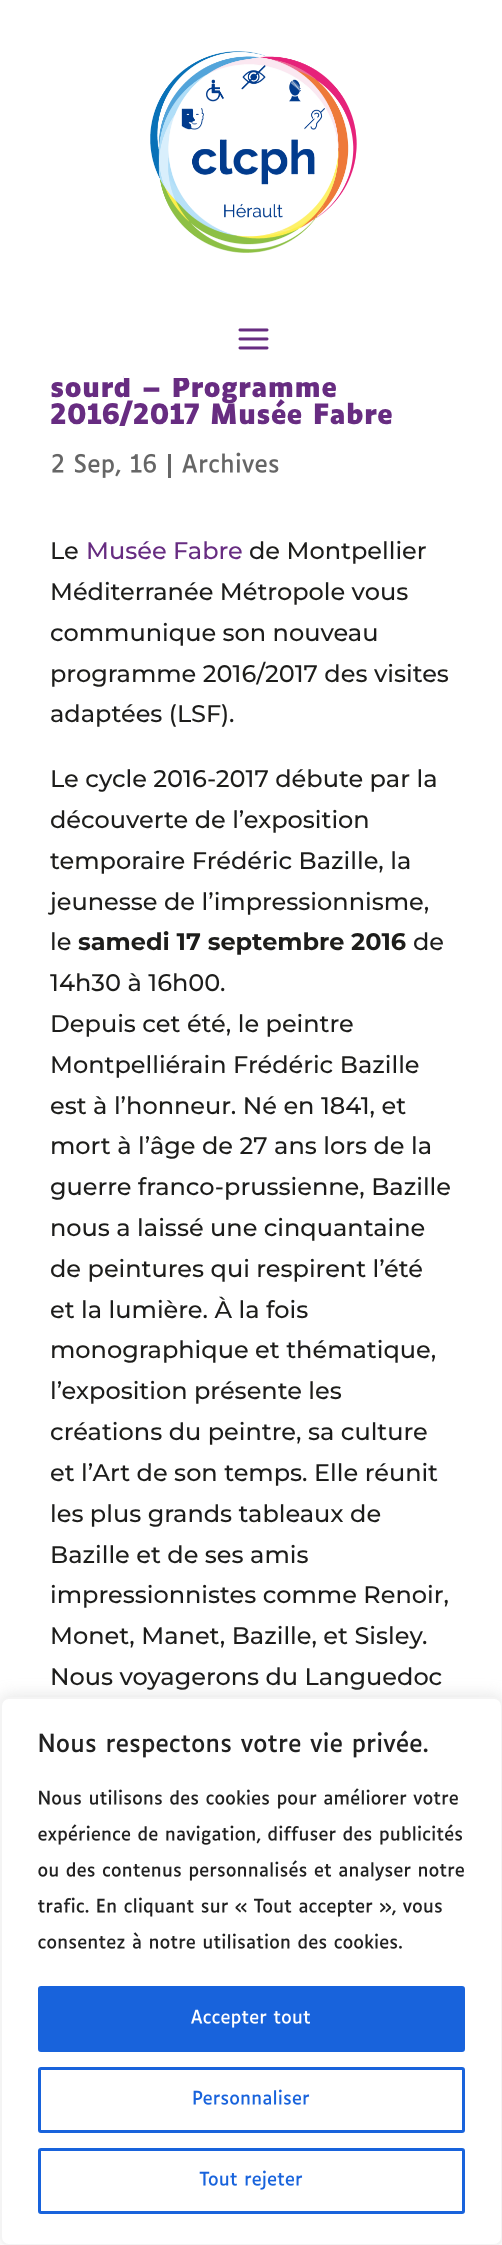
async function draw(canvas) {
  canvas.width = 502
  canvas.height = 2245
  const ctx = canvas.getContext('2d')
  ctx.miterLimit = 4
  ctx.fontKerning = 'normal'
  async function loadImage(src) {
    const img = new Image()
    img.src = src
    await img.decode()
    return img
  }

  ctx.fillStyle = '#fff'
  ctx.fillRect(0, 0, 502, 2245)
  ctx.font = 'bold 27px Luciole'
  ctx.fillStyle = '#672c81'
  ctx.fillText('sourd – Programme', 50, 397)
  ctx.fillStyle = '#fff'
  ctx.fillRect(124, 375, 63, 3)
  ctx.drawImage(await loadImage('image0.png'), 150, 51, 207, 202)
  ctx.drawImage(await loadImage('image1.png'), 238, 328, 31, 22)
  ctx.fillStyle = '#672c81'
  ctx.fillText('2016/2017 Musée Fabre', 50, 424)
  ctx.drawImage(await loadImage('image2.png'), 52, 453, 104, 25)
  ctx.fillStyle = '#666'
  ctx.fillRect(168, 454, 3, 24)
  ctx.drawImage(await loadImage('image3.png'), 182, 452, 97, 21)
  ctx.font = '500 24px Montserrat'
  ctx.fillStyle = '#1d1d1b'
  ctx.fillText('Le', 50, 559)
  ctx.fillStyle = '#672c81'
  ctx.fillText('Musée Fabre', 86, 559)
  ctx.fillStyle = '#1d1d1b'
  ctx.fillText('de Montpellier', 249, 559)
  ctx.fillText('Méditerranée Métropole vous', 50, 600)
  ctx.fillText('communique son nouveau', 50, 641)
  ctx.fillText('programme 2016/2017 des visites', 50, 682)
  ctx.fillText('adaptées (LSF).', 50, 722)
  ctx.fillText('Le cycle 2016-2017 débute par la', 50, 787)
  ctx.fillText('découverte de l’exposition', 50, 828)
  ctx.fillText('temporaire Frédéric Bazille, la', 50, 869)
  ctx.fillText('jeunesse de l’impressionnisme,', 50, 910)
  ctx.fillText('le', 50, 950)
  ctx.font = 'bold 24px Montserrat'
  ctx.fillText('samedi 17 septembre 2016', 78, 950)
  ctx.font = '500 24px Montserrat'
  ctx.fillText('de', 413, 950)
  ctx.fillText('14h30 à 16h00.', 50, 991)
  ctx.fillText('Depuis cet été, le peintre', 50, 1032)
  ctx.fillText('Montpelliérain Frédéric Bazille', 50, 1073)
  ctx.fillText('est à l’honneur. Né en 1841, et', 50, 1114)
  ctx.fillText('mort à l’âge de 27 ans lors de la', 50, 1154)
  ctx.fillText('guerre franco-prussienne, Bazille', 50, 1195)
  ctx.fillText('nous a laissé une cinquantaine', 50, 1236)
  ctx.fillText('de peintures qui respirent l’été', 50, 1277)
  ctx.fillText('et la lumière. À la fois', 50, 1318)
  ctx.fillText('monographique et thématique,', 50, 1358)
  ctx.fillText('l’exposition présente les', 50, 1399)
  ctx.fillText('créations du peintre, sa culture', 50, 1440)
  ctx.fillText('et l’Art de son temps. Elle réunit', 50, 1481)
  ctx.fillText('les plus grands tableaux de', 50, 1522)
  ctx.fillText('Bazille et de ses amis', 50, 1563)
  ctx.fillText('impressionnistes comme Renoir,', 50, 1603)
  ctx.fillText('Monet, Manet, Bazille, et Sisley.', 50, 1644)
  ctx.fillText('Nous voyagerons du Languedoc', 50, 1685)
  ctx.fillStyle = '#acabab4d'
  ctx.filter = 'blur(7.5px)'
  ctx.beginPath()
  ctx.roundRect(0, 1695, 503, 549, 9)
  ctx.fill()
  ctx.filter = 'none'
  ctx.fillStyle = '#fff'
  ctx.beginPath()
  ctx.roundRect(1, 1698, 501, 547, 8)
  ctx.fill()
  ctx.strokeStyle = '#f4f4f4'
  ctx.lineWidth = 2
  ctx.stroke()
  ctx.drawImage(await loadImage('image4.png'), 39, 1730, 389, 28)
  ctx.drawImage(await loadImage('image5.png'), 39, 1788, 419, 21)
  ctx.drawImage(await loadImage('image6.png'), 38, 1824, 424, 21)
  ctx.drawImage(await loadImage('image7.png'), 38, 1860, 426, 21)
  ctx.drawImage(await loadImage('image8.png'), 38, 1897, 404, 20)
  ctx.drawImage(await loadImage('image9.png'), 38, 1932, 364, 17)
  ctx.fillStyle = '#1863dc'
  ctx.beginPath()
  ctx.roundRect(39.5, 1987.5, 424, 63, 1.5)
  ctx.fill()
  ctx.strokeStyle = '#1863dc'
  ctx.lineWidth = 3
  ctx.stroke()
  ctx.drawImage(await loadImage('image10.png'), 191, 2009, 119, 19)
  ctx.beginPath()
  ctx.roundRect(39.5, 2068.5, 424, 63, 1.5)
  ctx.stroke()
  ctx.drawImage(await loadImage('image11.png'), 193, 2089, 117, 16)
  ctx.beginPath()
  ctx.roundRect(39.5, 2149.5, 424, 63, 1.5)
  ctx.stroke()
  ctx.drawImage(await loadImage('image12.png'), 199, 2170, 104, 20)
}

draw(document.querySelector('canvas'))
